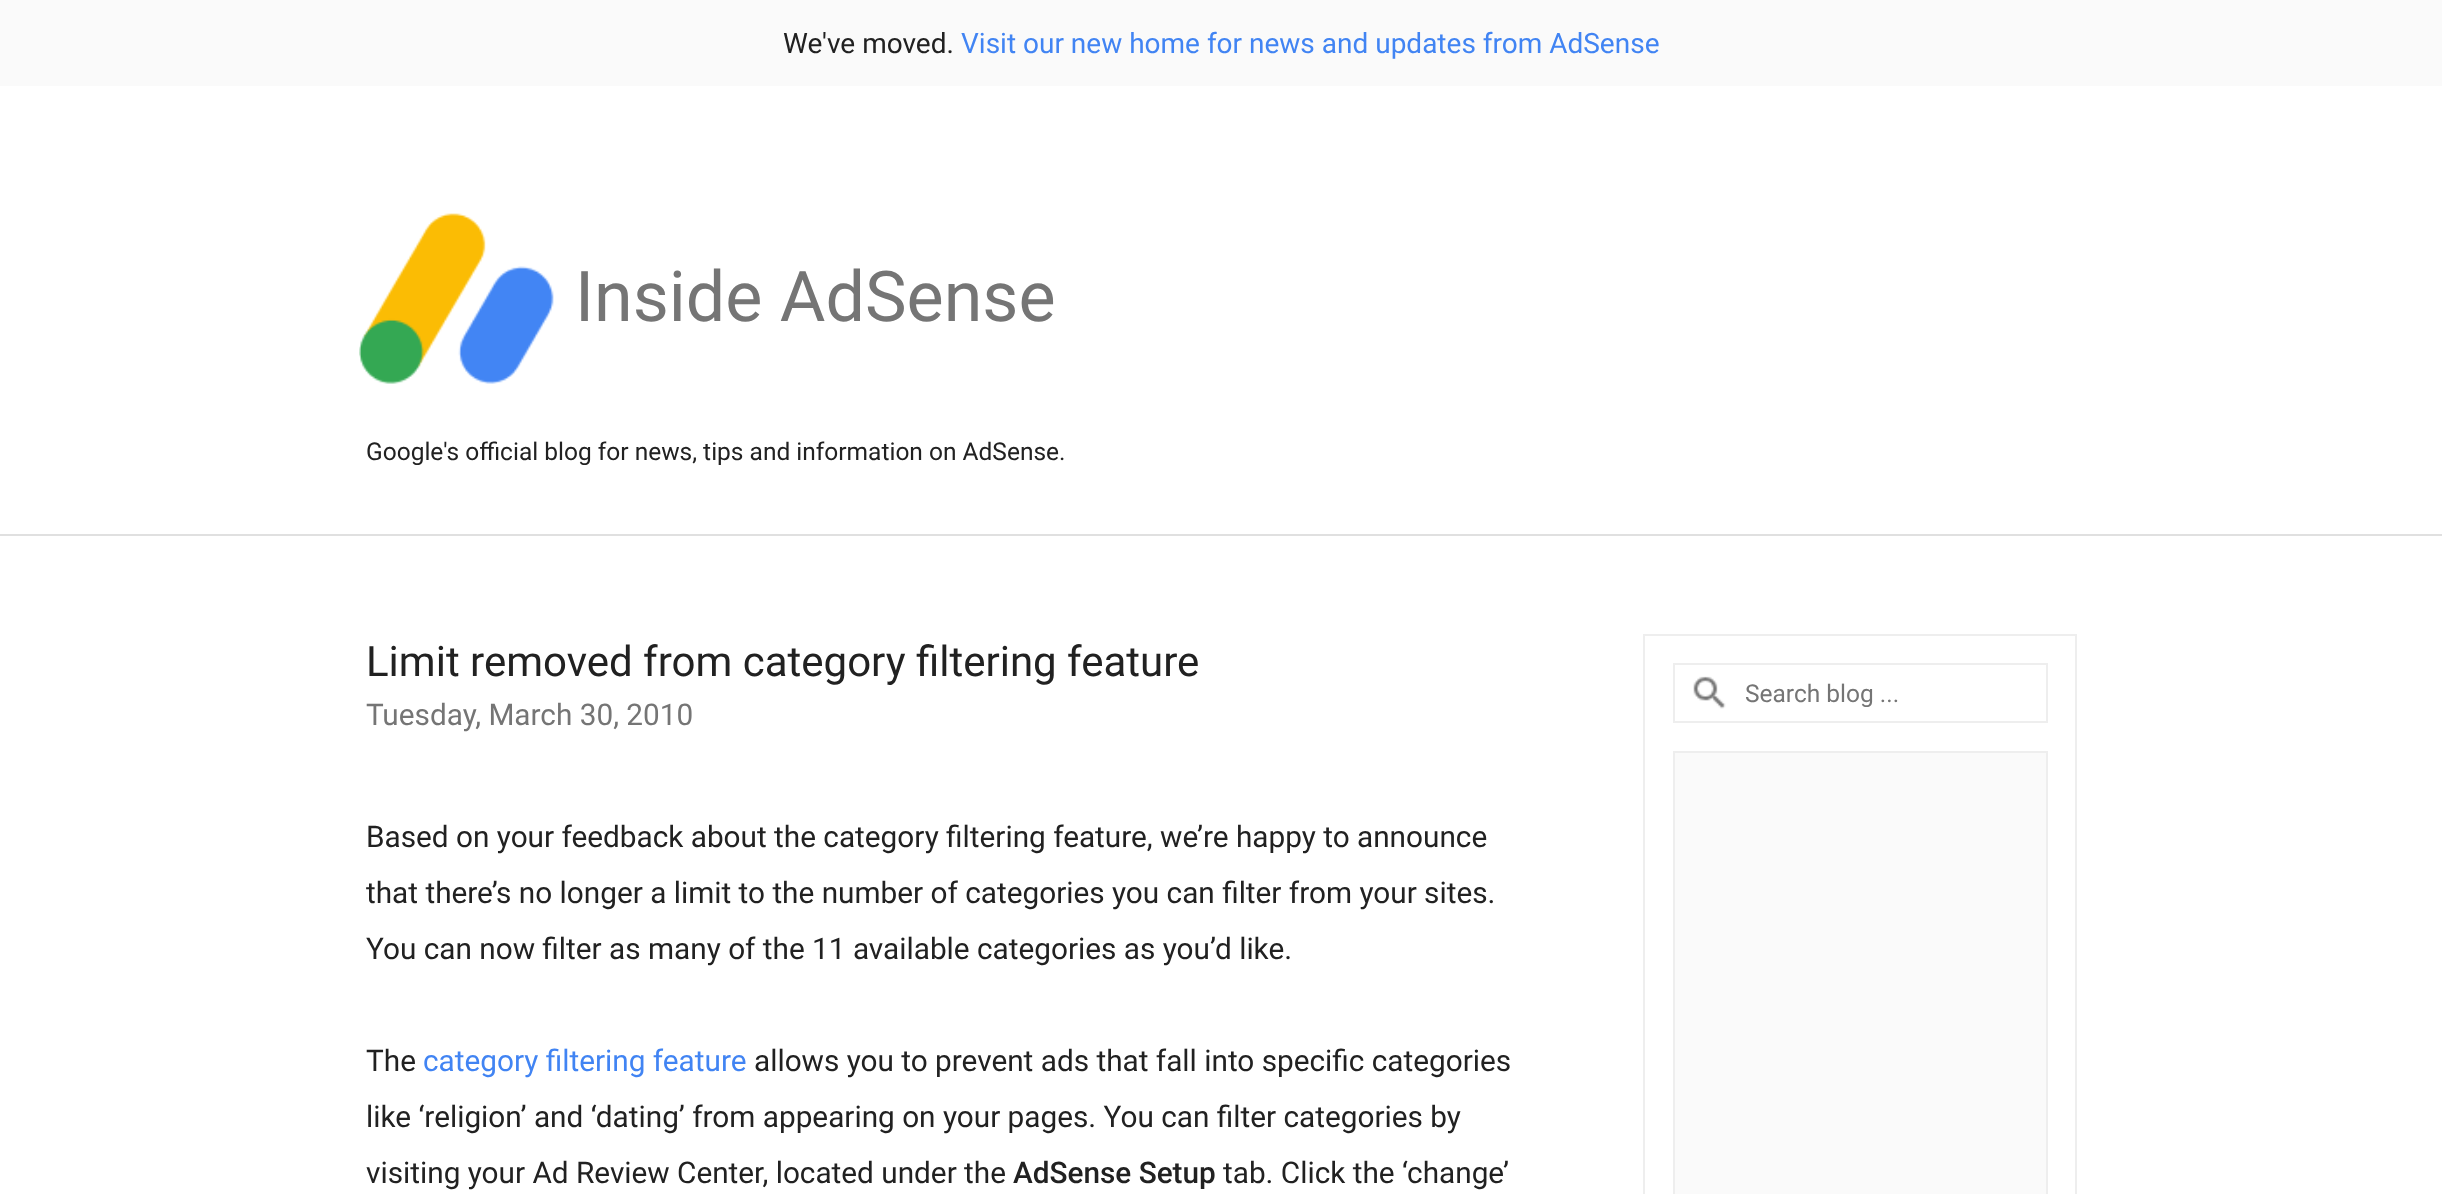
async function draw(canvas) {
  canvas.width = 2442
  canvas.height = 1194
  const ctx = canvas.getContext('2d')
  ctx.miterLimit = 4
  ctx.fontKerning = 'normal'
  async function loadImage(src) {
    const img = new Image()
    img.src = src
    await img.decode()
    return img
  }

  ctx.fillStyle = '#fff'
  ctx.fillRect(0, 0, 2442, 1194)
  ctx.fillStyle = '#fafafa'
  ctx.fillRect(0, 0, 2442, 86)
  ctx.font = '28px Roboto'
  ctx.fillStyle = '#212121'
  ctx.fillText('We\'ve moved.', 783, 53)
  ctx.fillStyle = '#4184f3'
  ctx.fillText('Visit our new home for news and updates from AdSense', 961, 53)
  ctx.fillStyle = '#e0e0e0'
  ctx.fillRect(0, 534, 2442, 2)
  ctx.drawImage(await loadImage('image0.png'), 359, 213, 195, 171)
  ctx.font = '70px Roboto'
  ctx.fillStyle = '#757575'
  ctx.fillText('Inside AdSense', 575, 321)
  ctx.font = '24.5px Roboto'
  ctx.fillStyle = '#212121'
  ctx.fillText('Google\'s official blog for news, tips and information on AdSense.', 366, 460)
  ctx.font = '42px Roboto'
  ctx.fillText('Limit removed from category filtering feature', 366, 676)
  ctx.font = '29.75px Roboto'
  ctx.fillStyle = '#757575'
  ctx.fillText('Tuesday, March 30, 2010', 366, 725)
  ctx.fillStyle = '#212121'
  ctx.fillText('Based on your feedback about the category filtering feature, we’re happy to announce', 366, 847)
  ctx.fillText('that there’s no longer a limit to the number of categories you can filter from your sites.', 366, 903)
  ctx.fillText('You can now filter as many of the 11 available categories as you’d like.', 366, 959)
  ctx.fillText('The', 366, 1071)
  ctx.fillStyle = '#4184f3'
  ctx.fillText('category filtering feature', 423, 1071)
  ctx.fillStyle = '#212121'
  ctx.fillText('allows you to prevent ads that fall into specific categories', 754, 1071)
  ctx.fillText('like ‘religion’ and ‘dating’ from appearing on your pages. You can filter categories by', 366, 1127)
  ctx.fillText('visiting your Ad Review Center, located under the', 366, 1183)
  ctx.font = '500 29.75px Roboto'
  ctx.fillText('AdSense Setup', 1013, 1183)
  ctx.font = '29.75px Roboto'
  ctx.fillText('tab. Click the ‘change’', 1223, 1183)
  ctx.strokeStyle = '#eee'
  ctx.lineWidth = 2
  ctx.strokeRect(1644, 635, 432, 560)
  ctx.drawImage(await loadImage('image1.png'), 1693, 676, 33, 33)
  ctx.strokeRect(1674, 664, 373, 58)
  ctx.font = '24.5px Roboto'
  ctx.fillStyle = '#757575'
  ctx.fillText('Search blog ...', 1745, 702)
  ctx.fillStyle = '#fafafa'
  ctx.beginPath()
  ctx.rect(1674, 752, 373, 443)
  ctx.fill()
  ctx.stroke()
}

draw(document.querySelector('canvas'))
